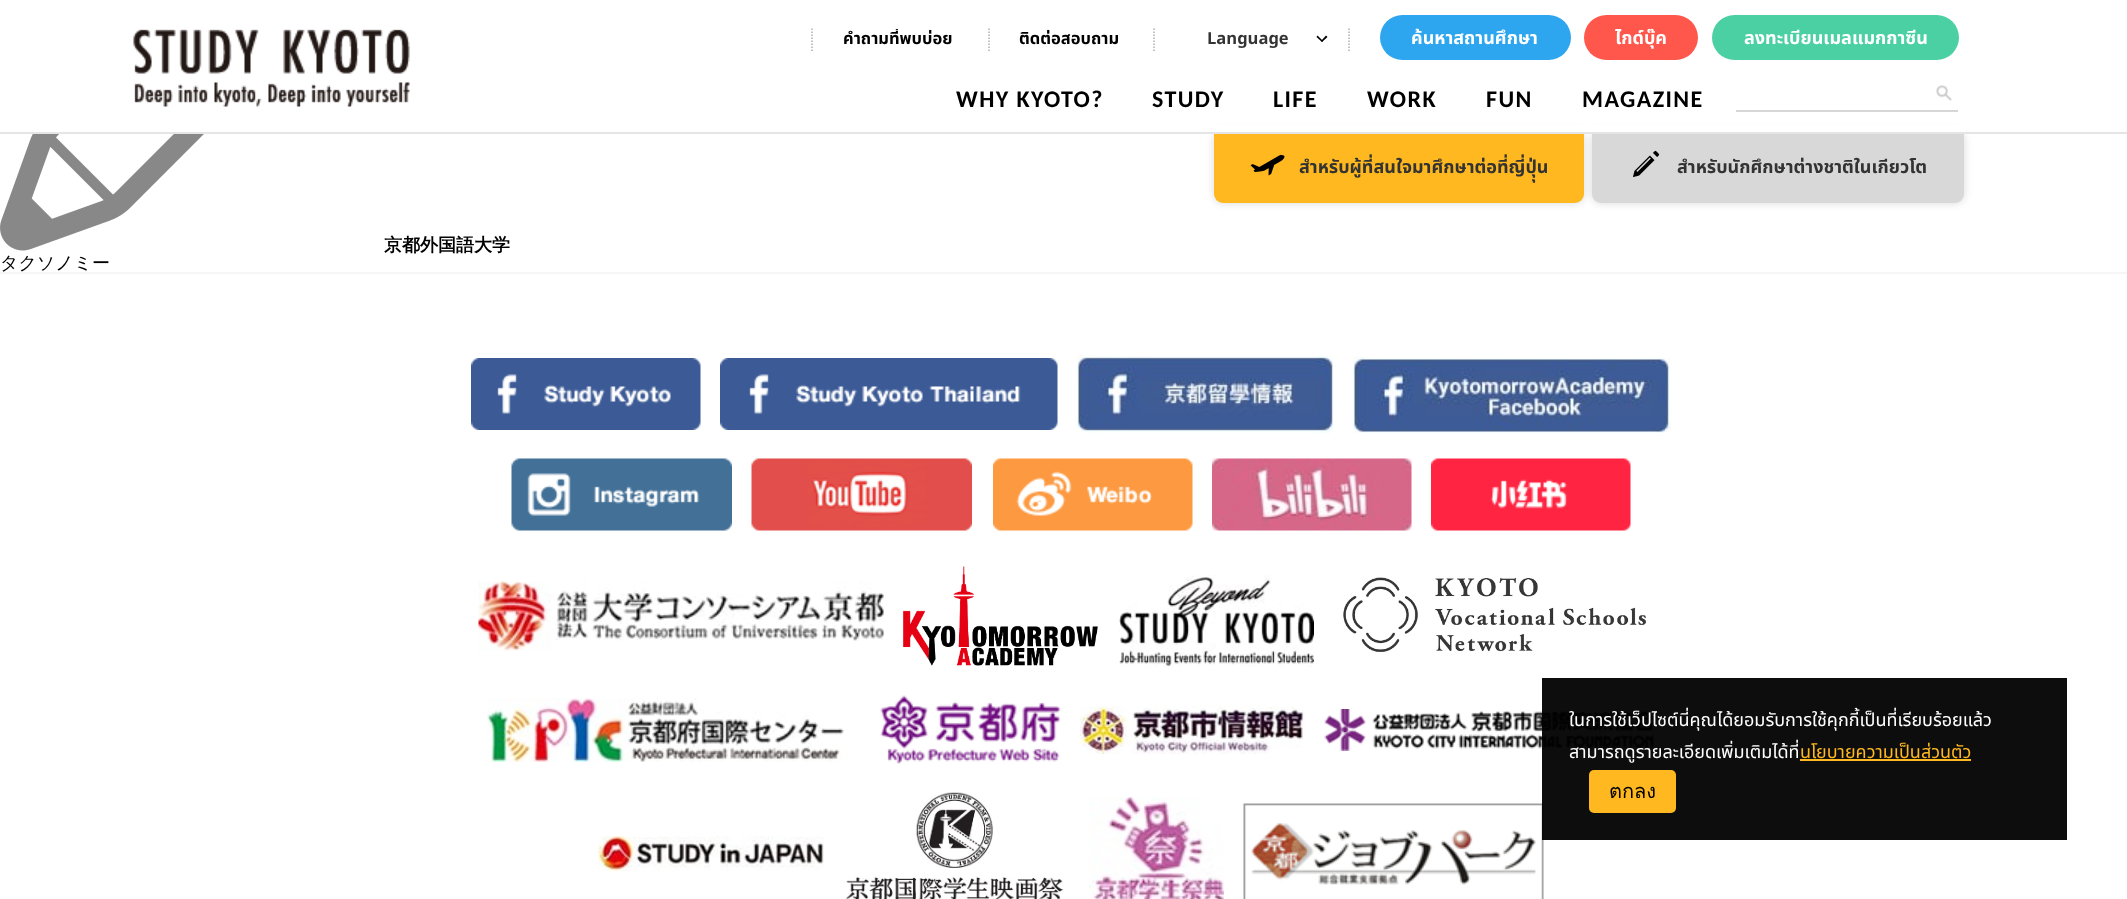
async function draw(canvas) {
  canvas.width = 2127
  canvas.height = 899
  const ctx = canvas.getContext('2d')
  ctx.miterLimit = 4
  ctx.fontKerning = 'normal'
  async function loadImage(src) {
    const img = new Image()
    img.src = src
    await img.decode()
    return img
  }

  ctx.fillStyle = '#fff'
  ctx.fillRect(0, 0, 2127, 899)
  ctx.fillStyle = '#00000026'
  ctx.filter = 'blur(4px)'
  ctx.beginPath()
  ctx.roundRect(1214, 131, 370, 72, 9)
  ctx.fill()
  ctx.filter = 'none'
  ctx.fillStyle = '#ffb81f'
  ctx.beginPath()
  ctx.roundRect(1214, 131, 370, 72, [0, 0, 9, 9])
  ctx.fill()
  ctx.fillStyle = '#00000026'
  ctx.filter = 'blur(4px)'
  ctx.beginPath()
  ctx.roundRect(1592, 131, 372, 72, 9)
  ctx.fill()
  ctx.filter = 'none'
  ctx.fillStyle = '#d8d8d8'
  ctx.beginPath()
  ctx.roundRect(1592, 131, 372, 72, [0, 0, 9, 9])
  ctx.fill()
  ctx.fillStyle = '#fff'
  ctx.fillRect(1212, 125, 754, 7)
  ctx.fillStyle = '#e5e5e5'
  ctx.fillRect(0, 132, 2127, 2)
  ctx.drawImage(await loadImage('image0.png'), 133, 29, 277, 78)
  ctx.beginPath()
  ctx.moveTo(1349, 28.5)
  ctx.lineTo(1349, 51)
  ctx.strokeStyle = '#afafaf'
  ctx.lineWidth = 1.5
  ctx.setLineDash([1.5, 1.5])
  ctx.stroke()
  ctx.beginPath()
  ctx.moveTo(812, 28.5)
  ctx.lineTo(812, 51)
  ctx.stroke()
  ctx.save()
  ctx.beginPath()
  ctx.rect(813, 29, 170, 22)
  ctx.clip()
  ctx.font = 'bold 16.5px Noto Sans Thai'
  ctx.fillStyle = '#000'
  ctx.fillText('คําถามที่พบบ่อย', 843, 44)
  ctx.restore()
  ctx.beginPath()
  ctx.moveTo(989, 28.5)
  ctx.lineTo(989, 51)
  ctx.stroke()
  ctx.font = 'bold 16.5px Noto Sans Thai'
  ctx.fillStyle = '#000'
  ctx.fillText('ติดต่อสอบถาม', 1019, 44)
  ctx.beginPath()
  ctx.moveTo(1154, 28.5)
  ctx.lineTo(1154, 51)
  ctx.stroke()
  ctx.fillStyle = '#333'
  ctx.fillText('Language', 1207, 44)
  ctx.fillStyle = '#000'
  ctx.beginPath()
  ctx.moveTo(1327.5, 37)
  ctx.lineTo(1322, 42)
  ctx.lineTo(1321, 41)
  ctx.lineTo(1326, 35.5)
  ctx.closePath()
  ctx.fill()
  ctx.beginPath()
  ctx.moveTo(1323, 41)
  ctx.lineTo(1322, 42)
  ctx.lineTo(1316.5, 37)
  ctx.lineTo(1317.5, 35.5)
  ctx.closePath()
  ctx.fill()
  ctx.fillStyle = '#2da6ef'
  ctx.beginPath()
  ctx.roundRect(1380, 15, 191, 45, 22.5)
  ctx.fill()
  ctx.font = 'bold 18px Noto Sans Thai'
  ctx.fillStyle = '#fff'
  ctx.fillText('ค้นหาสถานศึกษา', 1411, 44)
  ctx.fillStyle = '#ff574c'
  ctx.beginPath()
  ctx.roundRect(1584, 15, 114, 45, 22.5)
  ctx.fill()
  ctx.fillStyle = '#fff'
  ctx.fillText('ไกด์บุ๊ค', 1615, 44)
  ctx.fillStyle = '#4bd0a3'
  ctx.beginPath()
  ctx.roundRect(1712, 15, 247, 45, 22.5)
  ctx.fill()
  ctx.fillStyle = '#fff'
  ctx.fillText('ลงทะเบียนเมลแมกกาซีน', 1744, 44)
  ctx.letterSpacing = '1.4px'
  ctx.font = 'bold 24px Carlito'
  ctx.fillStyle = '#000'
  ctx.fillText('WHY KYOTO?', 956, 107)
  ctx.fillText('STUDY', 1152, 107)
  ctx.fillText('LIFE', 1273, 107)
  ctx.fillText('WORK', 1367, 107)
  ctx.fillText('FUN', 1486, 107)
  ctx.fillText('MAGAZINE', 1582, 107)
  ctx.drawImage(await loadImage('image1.png'), 1936, 85, 16, 16)
  ctx.fillStyle = '#d6d6d6'
  ctx.fillRect(1736, 110, 222, 2)
  ctx.drawImage(await loadImage('image2.png'), 1250, 154, 35, 22)
  ctx.letterSpacing = '0px'
  ctx.font = 'bold 18px Noto Sans Thai'
  ctx.fillStyle = '#333'
  ctx.fillText('สำหรับผู้ที่สนใจมาศึกษาต่อที่ญี่ปุุ่น', 1299, 173)
  ctx.drawImage(await loadImage('image3.png'), 1633, 150, 27, 27)
  ctx.fillText('สำหรับนักศึกษาต่างชาติในเกียวโต', 1677, 173)
  ctx.drawImage(await loadImage('image4.png'), 0, 134, 204, 117)
  ctx.font = 'bold 18px WenQuanYi Zen Hei'
  ctx.fillStyle = '#000'
  ctx.fillText('京都外国語大学', 384, 251)
  ctx.font = '500 18px WenQuanYi Zen Hei'
  ctx.fillText('タクソノミー', 0, 269)
  ctx.fillStyle = '#f6f6f6'
  ctx.fillRect(0, 272, 2127, 2)
  ctx.drawImage(await loadImage('image5.png'), 471, 358, 230, 72)
  ctx.drawImage(await loadImage('image6.png'), 720, 358, 338, 72)
  ctx.drawImage(await loadImage('image7.png'), 1077, 355, 257, 78)
  ctx.drawImage(await loadImage('image8.png'), 1353, 356, 318, 77)
  ctx.drawImage(await loadImage('image9.png'), 511, 458, 221, 73)
  ctx.drawImage(await loadImage('image10.png'), 751, 458, 221, 73)
  ctx.drawImage(await loadImage('image11.png'), 993, 458, 200, 73)
  ctx.drawImage(await loadImage('image12.png'), 1212, 458, 200, 73)
  ctx.drawImage(await loadImage('image13.png'), 1431, 458, 200, 73)
  ctx.drawImage(await loadImage('image14.png'), 478, 581, 406, 70)
  ctx.drawImage(await loadImage('image15.png'), 903, 566, 195, 100)
  ctx.drawImage(await loadImage('image16.png'), 1119, 575, 195, 92)
  ctx.drawImage(await loadImage('image17.png'), 1343, 577, 304, 76)
  ctx.drawImage(await loadImage('image18.png'), 487, 698, 358, 64)
  ctx.drawImage(await loadImage('image19.png'), 880, 695, 181, 69)
  ctx.drawImage(await loadImage('image20.png'), 1080, 706, 225, 48)
  ctx.drawImage(await loadImage('image21.png'), 1324, 709, 331, 42)
  ctx.drawImage(await loadImage('image22.png'), 598, 836, 226, 35)
  ctx.drawImage(await loadImage('image23.png'), 845, 792, 219, 107)
  ctx.drawImage(await loadImage('image24.png'), 1089, 797, 135, 102)
  ctx.drawImage(await loadImage('image25.png'), 1243, 803, 301, 96)
  ctx.fillStyle = '#000000f2'
  ctx.fillRect(1542, 678, 525, 162)
  ctx.font = '18px Noto Sans Thai'
  ctx.fillStyle = '#fff'
  ctx.fillText('ในการใช้เว็ปไซต์นี่คุณได้ยอมรับการใช้คุกกี้เป็นที่เรียบร้อยแล้ว', 1569, 726)
  ctx.fillText('สามารถดูรายละเอียดเพิ่มเติมได้ที่', 1569, 758)
  ctx.fillStyle = '#ffb81f'
  ctx.fillText('นโยบายความเป็นส่วนตัว', 1800, 758)
  ctx.fillRect(1800, 759, 171, 2)
  ctx.beginPath()
  ctx.roundRect(1589, 770, 87, 43, 5)
  ctx.fill()
  ctx.font = '20px Loma'
  ctx.fillStyle = '#000'
  ctx.fillText('ตกลง', 1609, 798)
}

draw(document.querySelector('canvas'))
